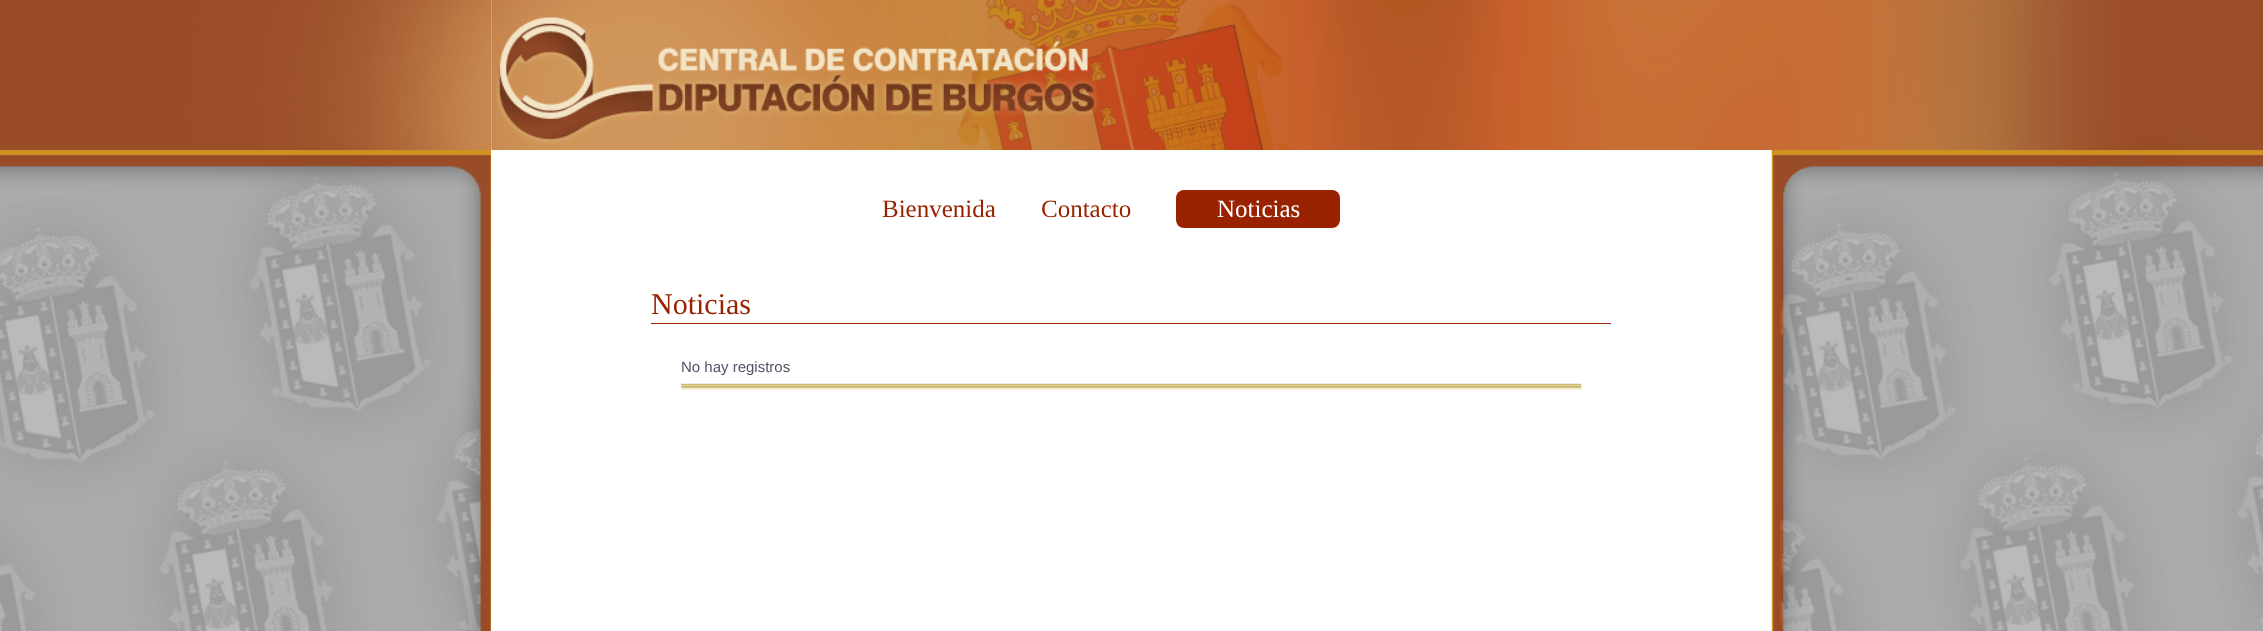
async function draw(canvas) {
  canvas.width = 2263
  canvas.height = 631
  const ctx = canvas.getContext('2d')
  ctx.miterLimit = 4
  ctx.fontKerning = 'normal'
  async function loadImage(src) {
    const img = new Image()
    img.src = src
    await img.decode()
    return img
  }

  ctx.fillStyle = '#fff'
  ctx.fillRect(0, 0, 2263, 631)
  ctx.drawImage(await loadImage('image0.png'), 0, 0, 2263, 631)
  ctx.fillRect(491, 0, 1280, 631)
  ctx.drawImage(await loadImage('image1.png'), 491, 0, 1280, 150)
  ctx.drawImage(await loadImage('image2.png'), 495, 17, 604, 127)
  ctx.font = '25px Liberation Serif'
  ctx.fillStyle = '#920'
  ctx.fillText('Bienvenida', 882, 217)
  ctx.fillText('Contacto', 1041, 217)
  ctx.beginPath()
  ctx.roundRect(1176, 190, 164, 38, 8)
  ctx.fill()
  ctx.fillStyle = '#fff'
  ctx.fillText('Noticias', 1217, 217)
  ctx.fillStyle = '#920'
  ctx.fillRect(651, 323, 960, 1)
  ctx.font = '30px Liberation Serif'
  ctx.fillText('Noticias', 651, 314)
  ctx.drawImage(await loadImage('image3.png'), 681, 383, 901, 7)
  ctx.font = '15px Liberation Sans'
  ctx.fillStyle = '#525465'
  ctx.fillText('No hay registros', 681, 372)
}

draw(document.querySelector('canvas'))
